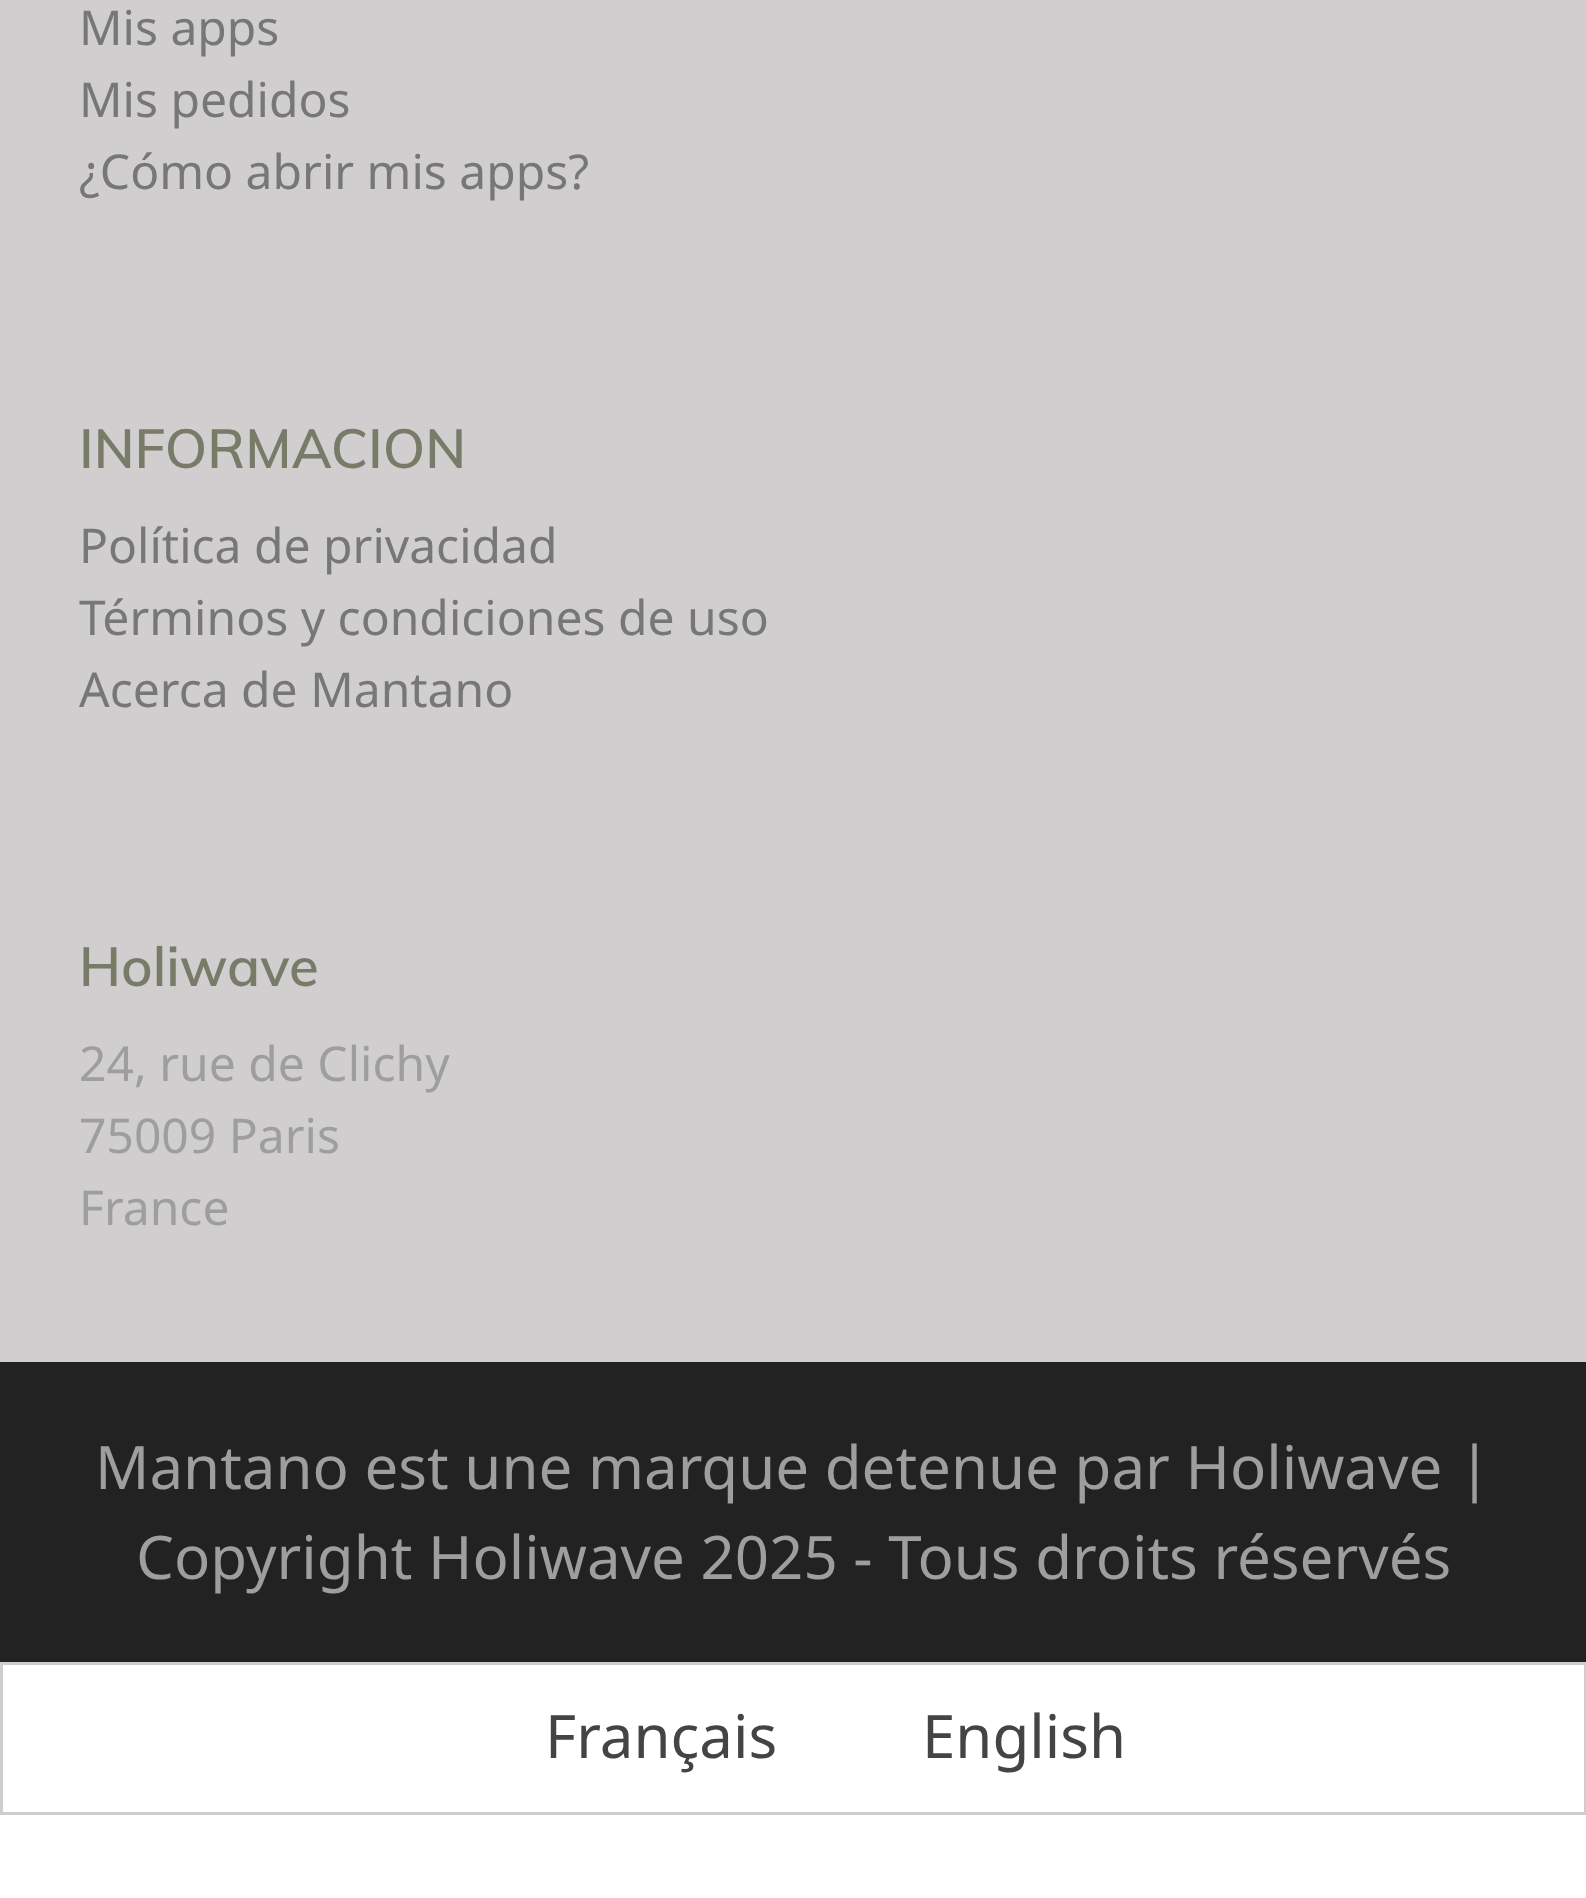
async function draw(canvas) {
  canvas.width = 1586
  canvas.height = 1898
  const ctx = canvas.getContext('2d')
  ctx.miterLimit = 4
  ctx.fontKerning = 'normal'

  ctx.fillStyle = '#fff'
  ctx.fillRect(0, 0, 1586, 1898)
  ctx.fillStyle = '#d0cece'
  ctx.fillRect(0, 0, 1586, 1362)
  ctx.font = '48px Noto Sans'
  ctx.fillStyle = '#777'
  ctx.fillText('Mis apps', 79, 45)
  ctx.fillText('Mis pedidos', 79, 117)
  ctx.fillText('¿Cómo abrir mis apps?', 79, 189)
  ctx.font = '600 54.5px Muli'
  ctx.fillStyle = '#787b68'
  ctx.fillText('INFORMACION', 79, 468)
  ctx.font = '48px Noto Sans'
  ctx.fillStyle = '#777'
  ctx.fillText('Política de privacidad', 79, 563)
  ctx.fillText('Términos y condiciones de uso', 79, 635)
  ctx.fillText('Acerca de Mantano', 79, 707)
  ctx.font = '600 54.5px Muli'
  ctx.fillStyle = '#787b68'
  ctx.fillText('Holiwave', 79, 986)
  ctx.font = '48px Noto Sans'
  ctx.fillStyle = '#9e9e9e'
  ctx.fillText('24, rue de Clichy', 79, 1081)
  ctx.fillText('75009 Paris', 79, 1153)
  ctx.fillText('France', 79, 1225)
  ctx.fillStyle = '#222'
  ctx.fillRect(0, 1362, 1586, 300)
  ctx.font = '60px Noto Sans'
  ctx.fillStyle = '#9e9e9e'
  ctx.fillText('Mantano est une marque detenue par Holiwave |', 95, 1489)
  ctx.fillText('Copyright Holiwave 2025 - Tous droits réservés', 136, 1579)
  ctx.strokeStyle = '#cdcdcd'
  ctx.lineWidth = 3
  ctx.strokeRect(1.5, 1663.5, 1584, 150)
  ctx.fillStyle = '#444'
  ctx.fillText('Français', 545, 1758)
  ctx.fillText('English', 922, 1758)
}

draw(document.querySelector('canvas'))
